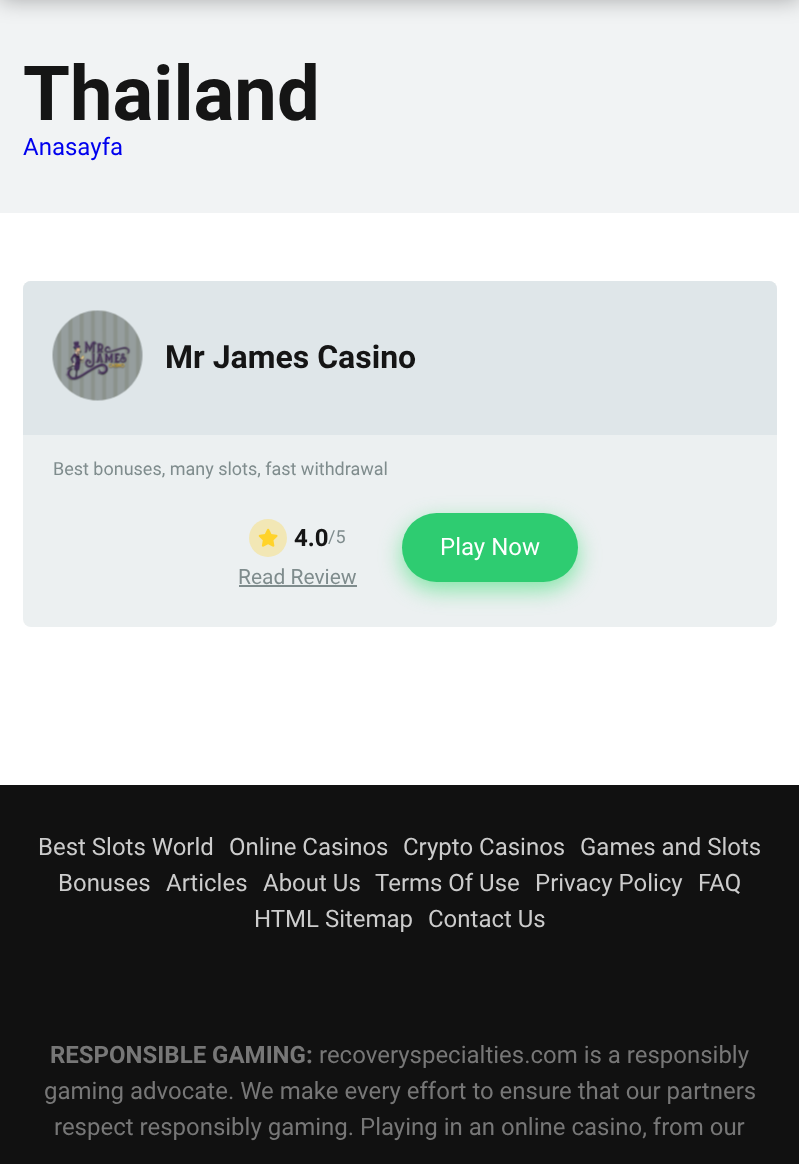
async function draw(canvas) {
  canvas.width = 799
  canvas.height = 1164
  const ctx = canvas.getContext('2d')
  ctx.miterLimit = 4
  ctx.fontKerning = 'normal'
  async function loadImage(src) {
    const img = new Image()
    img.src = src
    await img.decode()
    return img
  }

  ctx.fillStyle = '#fff'
  ctx.fillRect(0, 0, 799, 1164)
  ctx.fillStyle = '#f1f3f4'
  ctx.fillRect(0, 0, 799, 213)
  ctx.fillStyle = '#0000004d'
  ctx.filter = 'blur(11px)'
  ctx.beginPath()
  ctx.rect(0, -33, 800, 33)
  ctx.fill()
  ctx.filter = 'none'
  ctx.font = 'bold 76px Roboto'
  ctx.fillStyle = '#151515'
  ctx.fillText('Thailand', 23, 120)
  ctx.font = '24px Roboto'
  ctx.fillStyle = '#00e'
  ctx.fillText('Anasayfa', 23, 155)
  ctx.fillStyle = '#ecf0f1'
  ctx.beginPath()
  ctx.roundRect(23, 281, 754, 346, 8)
  ctx.fill()
  ctx.fillStyle = '#dfe6e9'
  ctx.beginPath()
  ctx.roundRect(23, 281, 754, 154, [8, 8, 0, 0])
  ctx.fill()
  ctx.drawImage(await loadImage('image0.png'), 52, 310, 91, 91)
  ctx.font = 'bold 32px Roboto'
  ctx.fillStyle = '#151515'
  ctx.fillText('Mr James Casino', 165, 368)
  ctx.font = '18px Roboto'
  ctx.fillStyle = '#7f8c8d'
  ctx.fillText('Best bonuses, many slots, fast withdrawal', 53, 475)
  ctx.fillStyle = '#f2e7b5'
  ctx.beginPath()
  ctx.arc(268, 538, 19, 0, 2 * Math.PI)
  ctx.fill()
  ctx.drawImage(await loadImage('image1.png'), 258, 528, 20, 19)
  ctx.font = 'bold 24px Roboto'
  ctx.fillStyle = '#151515'
  ctx.fillText('4.0', 294, 546)
  ctx.font = '18px Roboto'
  ctx.fillStyle = '#7f8c8d'
  ctx.fillText('/5', 328, 543)
  ctx.font = '21px Roboto'
  ctx.fillText('Read Review', 238, 584)
  ctx.fillRect(239, 585, 118, 2)
  ctx.fillStyle = '#2ddd6c8c'
  ctx.filter = 'blur(11px)'
  ctx.beginPath()
  ctx.roundRect(402, 521, 176, 69, 34.5)
  ctx.fill()
  ctx.filter = 'none'
  ctx.fillStyle = '#2ecc71'
  ctx.beginPath()
  ctx.roundRect(402, 513, 176, 69, 34.5)
  ctx.fill()
  ctx.font = '24px Roboto'
  ctx.fillStyle = '#fff'
  ctx.fillText('Play Now', 440, 555)
  ctx.fillStyle = '#111'
  ctx.fillRect(0, 785, 799, 379)
  ctx.fillStyle = '#ccc'
  ctx.fillText('Best Slots World', 38, 855)
  ctx.fillText('Online Casinos', 229, 855)
  ctx.fillText('Crypto Casinos', 403, 855)
  ctx.fillText('Games and Slots', 580, 855)
  ctx.fillText('Bonuses', 58, 891)
  ctx.fillText('Articles', 166, 891)
  ctx.fillText('About Us', 263, 891)
  ctx.fillText('Terms Of Use', 375, 891)
  ctx.fillText('Privacy Policy', 535, 891)
  ctx.fillText('FAQ', 698, 891)
  ctx.fillText('HTML Sitemap', 254, 927)
  ctx.fillText('Contact Us', 428, 927)
  ctx.font = 'bold 24px Roboto'
  ctx.fillStyle = '#777'
  ctx.fillText('RESPONSIBLE GAMING:', 50, 1063)
  ctx.font = '24px Roboto'
  ctx.fillText('recoveryspecialties.com is a responsibly', 319, 1063)
  ctx.fillText('gaming advocate. We make every effort to ensure that our partners', 44, 1099)
  ctx.fillText('respect responsibly gaming. Playing in an online casino, from our', 54, 1135)
}

draw(document.querySelector('canvas'))
